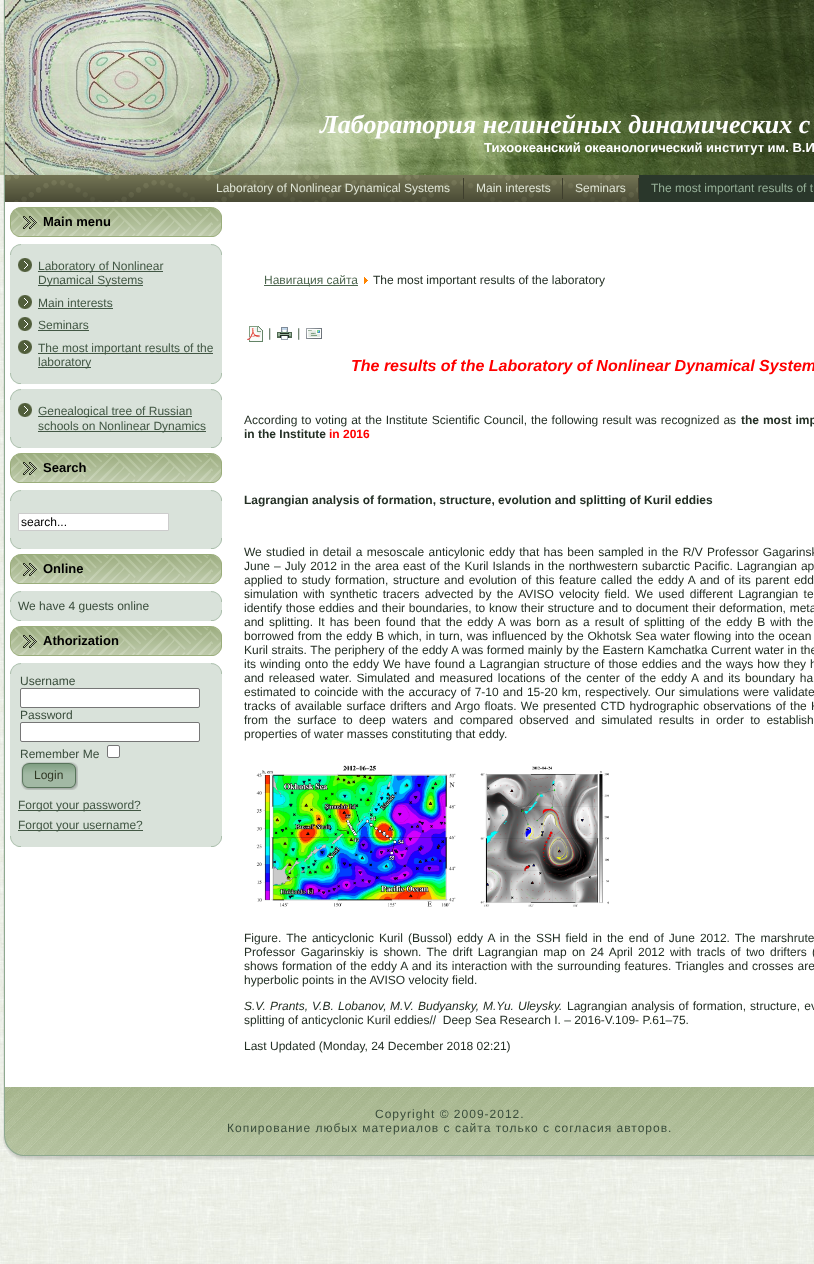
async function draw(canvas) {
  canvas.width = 814
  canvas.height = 1264
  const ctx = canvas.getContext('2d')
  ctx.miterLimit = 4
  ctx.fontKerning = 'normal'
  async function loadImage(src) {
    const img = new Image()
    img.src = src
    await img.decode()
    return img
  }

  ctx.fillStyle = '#fff'
  ctx.fillRect(0, 0, 814, 1264)
  ctx.drawImage(await loadImage('image0.png'), 0, 175, 814, 1089)
  ctx.drawImage(await loadImage('image1.png'), 0, 0, 4, 175)
  ctx.drawImage(await loadImage('image2.png'), 3, 0, 2, 32)
  ctx.drawImage(await loadImage('image3.png'), 3, 32, 34, 1091)
  ctx.drawImage(await loadImage('image4.png'), 5, 0, 809, 175)
  ctx.font = 'italic bold 26px Liberation Serif'
  ctx.fillText('Лаборатория нелинейных динамических с', 320, 133)
  ctx.font = 'bold 13px Liberation Sans'
  ctx.fillText('Тихоокеанский океанологический институт им. В.И', 484, 152)
  ctx.drawImage(await loadImage('image5.png'), 5, 175, 634, 27)
  ctx.font = '12px Liberation Sans'
  ctx.fillStyle = '#e0e5d6'
  ctx.fillText('Laboratory of Nonlinear Dynamical Systems', 216, 192)
  ctx.fillStyle = '#3e3e2d'
  ctx.fillRect(463, 178, 1, 21)
  ctx.fillStyle = '#e0e5d6'
  ctx.fillText('Main interests', 476, 192)
  ctx.fillStyle = '#3e3e2d'
  ctx.fillRect(562, 178, 1, 21)
  ctx.fillStyle = '#e0e5d6'
  ctx.fillText('Seminars', 575, 192)
  ctx.fillStyle = '#3e3e2d'
  ctx.fillRect(638, 178, 1, 21)
  ctx.fillStyle = '#2a372b'
  ctx.fillRect(639, 175, 175, 27)
  ctx.fillStyle = '#96b098'
  ctx.fillText('The most important results of t', 651, 192)
  ctx.fillStyle = '#fff'
  ctx.fillRect(37, 202, 777, 885)
  ctx.drawImage(await loadImage('image6.png'), 10, 207, 201, 30)
  ctx.drawImage(await loadImage('image7.png'), 211, 207, 11, 30)
  ctx.drawImage(await loadImage('image8.png'), 23, 216, 14, 13)
  ctx.font = 'bold 13px Liberation Sans'
  ctx.fillStyle = '#000'
  ctx.fillText('Main menu', 43, 226)
  ctx.drawImage(await loadImage('image9.png'), 10, 244, 11, 11)
  ctx.fillStyle = '#d9e2da'
  ctx.fillRect(21, 244, 190, 11)
  ctx.drawImage(await loadImage('image10.png'), 211, 244, 11, 11)
  ctx.fillRect(10, 255, 11, 118)
  ctx.fillRect(21, 255, 201, 118)
  ctx.drawImage(await loadImage('image11.png'), 18, 258, 14, 14)
  ctx.fillStyle = '#425744'
  ctx.fillRect(38, 271, 125, 1)
  ctx.font = '12px Liberation Sans'
  ctx.fillText('Laboratory of Nonlinear', 38, 270)
  ctx.fillRect(38, 285, 105, 1)
  ctx.fillText('Dynamical Systems', 38, 284)
  ctx.drawImage(await loadImage('image11.png'), 18, 295, 14, 14)
  ctx.fillText('Main interests', 38, 307)
  ctx.fillRect(38, 308, 75, 1)
  ctx.drawImage(await loadImage('image11.png'), 18, 317, 14, 14)
  ctx.fillText('Seminars', 38, 329)
  ctx.fillRect(38, 330, 51, 1)
  ctx.drawImage(await loadImage('image11.png'), 18, 340, 14, 14)
  ctx.fillRect(38, 353, 175, 1)
  ctx.fillText('The most important results of the', 38, 352)
  ctx.fillRect(38, 367, 53, 1)
  ctx.fillText('laboratory', 38, 366)
  ctx.drawImage(await loadImage('image12.png'), 10, 373, 11, 11)
  ctx.fillStyle = '#d9e2da'
  ctx.fillRect(21, 373, 190, 11)
  ctx.drawImage(await loadImage('image13.png'), 211, 373, 11, 11)
  ctx.drawImage(await loadImage('image9.png'), 10, 389, 11, 11)
  ctx.fillRect(21, 389, 190, 11)
  ctx.drawImage(await loadImage('image10.png'), 211, 389, 11, 11)
  ctx.fillRect(10, 400, 11, 37)
  ctx.fillRect(21, 400, 201, 37)
  ctx.drawImage(await loadImage('image11.png'), 18, 403, 14, 14)
  ctx.fillStyle = '#425744'
  ctx.fillRect(38, 416, 154, 1)
  ctx.fillText('Genealogical tree of Russian', 38, 415)
  ctx.fillRect(38, 431, 168, 1)
  ctx.fillText('schools on Nonlinear Dynamics', 38, 430)
  ctx.drawImage(await loadImage('image12.png'), 10, 437, 11, 11)
  ctx.fillStyle = '#d9e2da'
  ctx.fillRect(21, 437, 190, 11)
  ctx.drawImage(await loadImage('image13.png'), 211, 437, 11, 11)
  ctx.drawImage(await loadImage('image6.png'), 10, 453, 201, 30)
  ctx.drawImage(await loadImage('image7.png'), 211, 453, 11, 30)
  ctx.drawImage(await loadImage('image8.png'), 23, 462, 14, 13)
  ctx.font = 'bold 13px Liberation Sans'
  ctx.fillStyle = '#000'
  ctx.fillText('Search', 43, 472)
  ctx.drawImage(await loadImage('image9.png'), 10, 490, 11, 11)
  ctx.fillStyle = '#d9e2da'
  ctx.fillRect(21, 490, 190, 11)
  ctx.drawImage(await loadImage('image10.png'), 211, 490, 11, 11)
  ctx.fillRect(10, 501, 11, 37)
  ctx.fillRect(21, 501, 201, 37)
  ctx.fillStyle = '#fff'
  ctx.beginPath()
  ctx.rect(18.5, 513.5, 150, 17)
  ctx.fill()
  ctx.strokeStyle = '#ccc'
  ctx.stroke()
  ctx.font = '12px Liberation Sans'
  ctx.fillStyle = '#000'
  ctx.fillText('search...', 21, 526)
  ctx.drawImage(await loadImage('image12.png'), 10, 538, 11, 11)
  ctx.fillStyle = '#d9e2da'
  ctx.fillRect(21, 538, 190, 11)
  ctx.drawImage(await loadImage('image13.png'), 211, 538, 11, 11)
  ctx.drawImage(await loadImage('image6.png'), 10, 554, 201, 30)
  ctx.drawImage(await loadImage('image7.png'), 211, 554, 11, 30)
  ctx.drawImage(await loadImage('image8.png'), 23, 563, 14, 13)
  ctx.font = 'bold 13px Liberation Sans'
  ctx.fillStyle = '#000'
  ctx.fillText('Online', 43, 573)
  ctx.drawImage(await loadImage('image9.png'), 10, 591, 11, 11)
  ctx.fillStyle = '#d9e2da'
  ctx.fillRect(21, 591, 190, 11)
  ctx.drawImage(await loadImage('image10.png'), 211, 591, 11, 11)
  ctx.fillRect(10, 602, 11, 8)
  ctx.fillRect(21, 602, 201, 8)
  ctx.drawImage(await loadImage('image12.png'), 10, 610, 11, 11)
  ctx.fillRect(21, 610, 190, 11)
  ctx.font = '12px Liberation Sans'
  ctx.fillStyle = '#394c3b'
  ctx.fillText('We have 4 guests online', 18, 610)
  ctx.drawImage(await loadImage('image13.png'), 211, 610, 11, 11)
  ctx.drawImage(await loadImage('image6.png'), 10, 626, 201, 30)
  ctx.drawImage(await loadImage('image7.png'), 211, 626, 11, 30)
  ctx.drawImage(await loadImage('image8.png'), 23, 635, 14, 13)
  ctx.font = 'bold 13px Liberation Sans'
  ctx.fillStyle = '#000'
  ctx.fillText('Athorization', 43, 645)
  ctx.drawImage(await loadImage('image9.png'), 10, 663, 11, 11)
  ctx.fillStyle = '#d9e2da'
  ctx.fillRect(21, 663, 190, 11)
  ctx.drawImage(await loadImage('image10.png'), 211, 663, 11, 11)
  ctx.fillRect(10, 674, 11, 162)
  ctx.fillRect(21, 674, 201, 162)
  ctx.font = '12px Liberation Sans'
  ctx.fillStyle = '#394c3b'
  ctx.fillText('Username', 20, 685)
  ctx.fillStyle = '#fff'
  ctx.beginPath()
  ctx.roundRect(20.5, 688.5, 179, 19, 1.5)
  ctx.fill()
  ctx.strokeStyle = '#767676'
  ctx.stroke()
  ctx.fillStyle = '#394c3b'
  ctx.fillText('Password', 20, 719)
  ctx.fillStyle = '#fff'
  ctx.beginPath()
  ctx.roundRect(20.5, 722.5, 179, 19, 1.5)
  ctx.fill()
  ctx.stroke()
  ctx.fillStyle = '#394c3b'
  ctx.fillText('Remember Me', 20, 758)
  ctx.fillStyle = '#fff'
  ctx.beginPath()
  ctx.roundRect(107.5, 745.5, 12, 12, 1.5)
  ctx.fill()
  ctx.stroke()
  ctx.drawImage(await loadImage('image14.png'), 21, 762, 46, 28)
  ctx.drawImage(await loadImage('image15.png'), 67, 762, 11, 28)
  ctx.fillStyle = '#303823'
  ctx.fillText('Login', 34, 779)
  ctx.fillStyle = '#425744'
  ctx.fillRect(18, 810, 123, 1)
  ctx.fillText('Forgot your password?', 18, 809)
  ctx.fillRect(18, 830, 125, 1)
  ctx.fillText('Forgot your username?', 18, 829)
  ctx.drawImage(await loadImage('image12.png'), 10, 836, 11, 11)
  ctx.fillStyle = '#d9e2da'
  ctx.fillRect(21, 836, 190, 11)
  ctx.drawImage(await loadImage('image13.png'), 211, 836, 11, 11)
  ctx.fillStyle = '#4d664f'
  ctx.fillRect(264, 285, 94, 1)
  ctx.fillText('Навигация сайта', 264, 284)
  ctx.drawImage(await loadImage('image16.png'), 364, 277, 4, 7)
  ctx.fillStyle = '#232f24'
  ctx.fillText('The most important results of the laboratory', 373, 284)
  ctx.drawImage(await loadImage('image17.png'), 247, 326, 16, 16)
  ctx.font = 'italic 12px Liberation Sans'
  ctx.fillStyle = '#48604a'
  ctx.fillText('|', 268, 337)
  ctx.drawImage(await loadImage('image18.png'), 277, 327, 15, 13)
  ctx.fillText('|', 297, 337)
  ctx.drawImage(await loadImage('image19.png'), 306, 328, 16, 11)
  ctx.font = 'italic bold 16px Liberation Sans'
  ctx.fillStyle = '#f00'
  ctx.fillText('The results of the Laboratory of Nonlinear Dynamical System', 351, 371)
  ctx.wordSpacing = '0.6px'
  ctx.font = '12px Liberation Sans'
  ctx.fillStyle = '#232f24'
  ctx.fillText('According to voting at the Institute Scientific Council, the following result was recognized as', 244, 424)
  ctx.font = 'bold 12px Liberation Sans'
  ctx.fillText('the most imp', 741, 424)
  ctx.wordSpacing = '0px'
  ctx.fillText('in the Institute', 244, 438)
  ctx.fillStyle = '#f00'
  ctx.fillText('in 2016', 329, 438)
  ctx.fillStyle = '#232f24'
  ctx.fillText('Lagrangian analysis of formation, structure, evolution and splitting of Kuril eddies', 244, 504)
  ctx.wordSpacing = '1px'
  ctx.font = '12px Liberation Sans'
  ctx.fillText('We studied in detail a mesoscale anticylonic eddy that has been sampled in the R/V Professor Gagarinsk', 244, 556)
  ctx.wordSpacing = '0.7px'
  ctx.fillText('June – July 2012 in the area east of the Kuril Islands in the northwestern subarctic Pacific. Lagrangian ap', 244, 570)
  ctx.wordSpacing = '1.2px'
  ctx.fillText('applied to study formation, structure and evolution of this feature called the eddy A and of its parent edd', 244, 584)
  ctx.wordSpacing = '2px'
  ctx.fillText('simulation with synthetic tracers advected by the AVISO velocity field. We used different Lagrangian te', 244, 598)
  ctx.wordSpacing = '0.4px'
  ctx.fillText('identify those eddies and their boundaries, to know their structure and to document their deformation, meta', 244, 612)
  ctx.wordSpacing = '1.65px'
  ctx.fillText('and splitting. It has been found that the eddy A was born as a result of splitting of the eddy B with the', 244, 626)
  ctx.wordSpacing = '0.5px'
  ctx.fillText('borrowed from the eddy B which, in turn, was influenced by the Okhotsk Sea water flowing into the ocean', 244, 640)
  ctx.wordSpacing = '0.25px'
  ctx.fillText('Kuril straits. The periphery of the eddy A was formed mainly by the Eastern Kamchatka Current water in the', 244, 654)
  ctx.wordSpacing = '0.7px'
  ctx.fillText('its winding onto the eddy We have found a Lagrangian structure of those eddies and the ways how they h', 244, 668)
  ctx.wordSpacing = '1.5px'
  ctx.fillText('and released water. Simulated and measured locations of the center of the eddy A and its boundary ha', 244, 682)
  ctx.wordSpacing = '0.75px'
  ctx.fillText('estimated to coincide with the accuracy of 7-10 and 15-20 km, respectively. Our simulations were validate', 244, 696)
  ctx.wordSpacing = '1px'
  ctx.fillText('tracks of available surface drifters and Argo floats. We presented CTD hydrographic observations of the K', 244, 710)
  ctx.wordSpacing = '2.9px'
  ctx.fillText('from the surface to deep waters and compared observed and simulated results in order to establish', 244, 724)
  ctx.wordSpacing = '0px'
  ctx.fillText('properties of water masses constituting that eddy.', 244, 738)
  ctx.drawImage(await loadImage('image20.png'), 256, 765, 200, 142)
  ctx.drawImage(await loadImage('image21.png'), 480, 766, 129, 141)
  ctx.wordSpacing = '1.7px'
  ctx.fillText('Figure. The anticyclonic Kuril (Bussol) eddy A in the SSH field in the end of June 2012. The marshrute', 244, 942)
  ctx.wordSpacing = '2px'
  ctx.fillText('Professor Gagarinskiy is shown. The drift Lagrangian map on 24 April 2012 with tracls of two drifters (', 244, 956)
  ctx.wordSpacing = '0.7px'
  ctx.fillText('shows formation of the eddy A and its interaction with the surrounding features. Triangles and crosses are', 244, 970)
  ctx.wordSpacing = '0px'
  ctx.fillText('hyperbolic points in the AVISO velocity field.', 244, 984)
  ctx.font = 'italic 12px Liberation Sans'
  ctx.fillText('S.V.', 244, 1010)
  ctx.fillText('Prants,', 270, 1010)
  ctx.fillText('V.B.', 312, 1010)
  ctx.fillText('Lobanov,', 338, 1010)
  ctx.fillText('M.V.', 390, 1010)
  ctx.fillText('Budyansky,', 418, 1010)
  ctx.fillText('M.Yu.', 483, 1010)
  ctx.fillText('Uleysky.', 518, 1010)
  ctx.wordSpacing = '0.75px'
  ctx.font = '12px Liberation Sans'
  ctx.fillText('Lagrangian analysis of formation, structure, ev', 567, 1010)
  ctx.wordSpacing = '0px'
  ctx.fillText('splitting of anticyclonic Kuril eddies//  Deep Sea Research I. – 2016-V.109- P.61–75.', 244, 1024)
  ctx.fillText('Last Updated (Monday, 24 December 2018 02:21)', 244, 1050)
  ctx.drawImage(await loadImage('image23.png'), 3, 1123, 34, 37)
  ctx.drawImage(await loadImage('image22.png'), 5, 1087, 809, 68)
  ctx.letterSpacing = '1px'
  ctx.fillStyle = '#394c3b'
  ctx.fillText('Copyright © 2009-2012.', 375, 1118)
  ctx.fillText('Копирование любых материалов с сайта только с согласия авторов.', 227, 1132)
  ctx.drawImage(await loadImage('image24.png'), 37, 1155, 777, 5)
}

draw(document.querySelector('canvas'))
